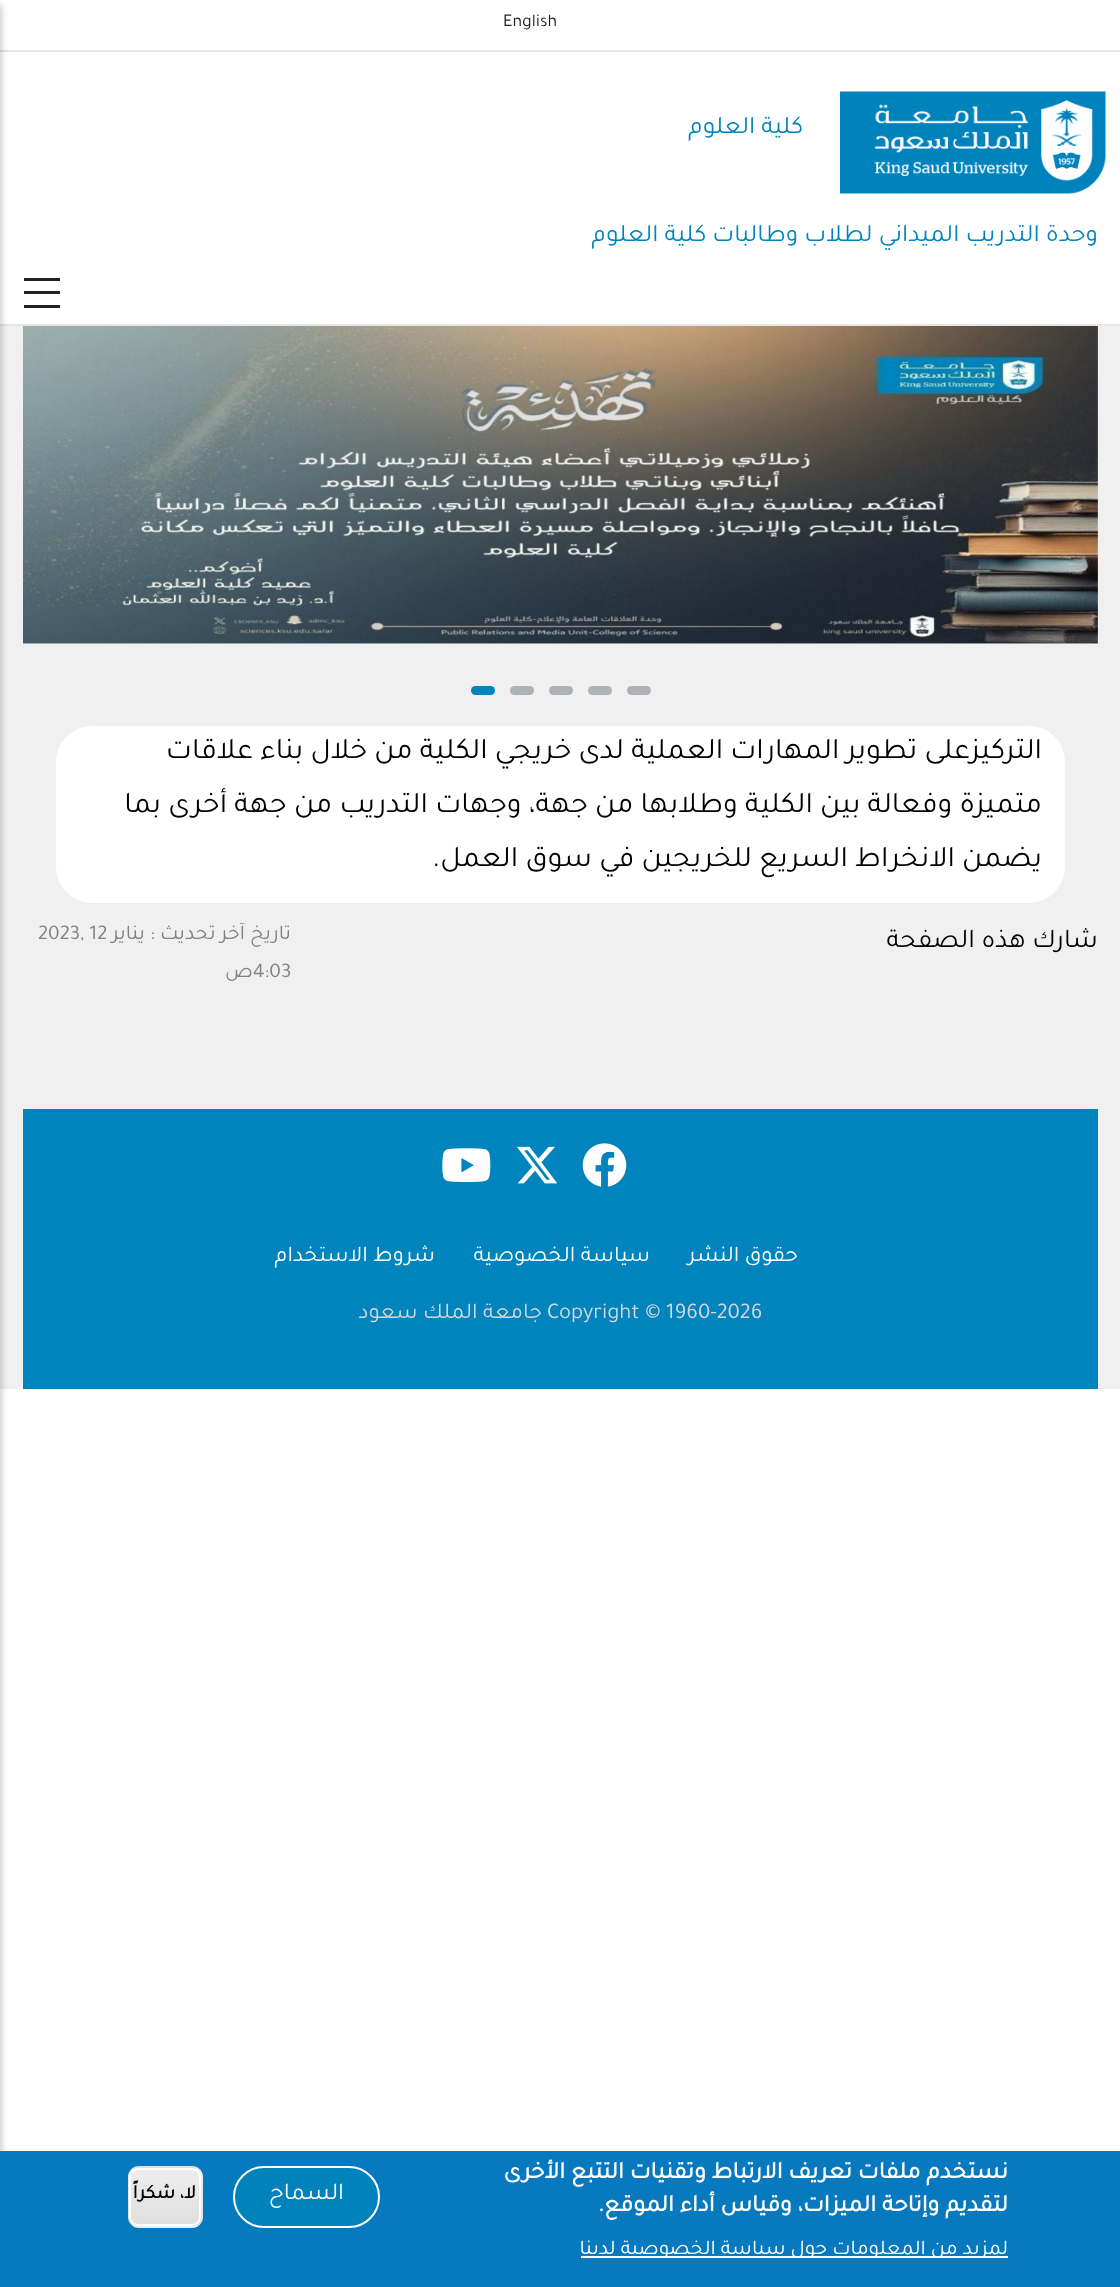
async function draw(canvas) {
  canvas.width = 1120
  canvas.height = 2287
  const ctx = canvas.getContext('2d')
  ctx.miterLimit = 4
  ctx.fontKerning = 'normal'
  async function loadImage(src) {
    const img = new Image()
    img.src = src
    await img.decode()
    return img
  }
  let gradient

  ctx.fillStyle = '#fff'
  ctx.fillRect(0, 0, 1120, 2287)
  ctx.fillStyle = '#f0f0f0'
  ctx.fillRect(0, 326, 1120, 1063)
  ctx.fillStyle = '#e6e6e6'
  ctx.fillRect(0, 324, 1120, 2)
  ctx.fillStyle = '#e7e7e7'
  ctx.fillRect(0, 50, 1120, 2)
  ctx.font = '18px Tajawal'
  ctx.fillStyle = '#1f1f1f'
  ctx.fillText('English', 503, 26)
  ctx.drawImage(await loadImage('image0.png'), 840, 91, 266, 103)
  ctx.direction = 'rtl'
  ctx.font = '25.2px Tajawal'
  ctx.fillStyle = '#0084bd'
  ctx.fillText('كلية العلوم', 803, 133)
  ctx.fillText('وحدة التدريب الميداني لطلاب وطالبات كلية العلوم', 1098, 241)
  ctx.fillStyle = '#222'
  ctx.fillRect(24, 278, 36, 3)
  ctx.fillRect(24, 291, 36, 3)
  ctx.fillRect(24, 305, 36, 3)
  ctx.fillStyle = '#00000033'
  ctx.filter = 'blur(3px)'
  ctx.beginPath()
  ctx.rect(-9, 5, 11, 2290)
  ctx.fill()
  ctx.filter = 'none'
  ctx.drawImage(await loadImage('image1.png'), 23, 326, 1075, 318)
  ctx.fillStyle = '#adb2b5'
  ctx.beginPath()
  ctx.roundRect(627, 686, 24, 9, 4.5)
  ctx.fill()
  ctx.beginPath()
  ctx.roundRect(588, 686, 24, 9, 4.5)
  ctx.fill()
  ctx.beginPath()
  ctx.roundRect(549, 686, 24, 9, 4.5)
  ctx.fill()
  ctx.beginPath()
  ctx.roundRect(510, 686, 24, 9, 4.5)
  ctx.fill()
  ctx.fillStyle = '#0084bd'
  ctx.beginPath()
  ctx.roundRect(471, 686, 24, 9, 4.5)
  ctx.fill()
  ctx.fillStyle = '#fff'
  ctx.beginPath()
  ctx.roundRect(56, 726, 1009, 177, 36)
  ctx.fill()
  ctx.font = '30px Tajawal'
  ctx.fillStyle = '#000'
  ctx.fillText('التركيزعلى تطوير المهارات العملية لدى خريجي الكلية من خلال بناء علاقات', 1042, 758)
  ctx.fillText('متميزة وفعالة بين الكلية وطلابها من جهة، وجهات التدريب من جهة أخرى بما', 1042, 812)
  ctx.fillText('يضمن الانخراط السريع للخريجين في سوق العمل.', 1042, 866)
  ctx.font = '27px Tajawal'
  ctx.fillText('شارك هذه الصفحة', 1098, 947)
  ctx.font = '21px Tajawal'
  ctx.fillStyle = '#828282'
  ctx.fillText('تاريخ آخر تحديث :', 291, 939)
  ctx.fillText('يناير', 145, 939)
  ctx.direction = 'ltr'
  ctx.fillText('2023, 12', 38, 939)
  ctx.fillText('4:03', 253, 977)
  ctx.direction = 'rtl'
  ctx.fillText('ص', 253, 977)
  ctx.fillStyle = '#0084bd'
  ctx.fillRect(23, 1109, 1075, 280)
  ctx.drawImage(await loadImage('image2.png'), 582, 1143, 45, 44)
  ctx.drawImage(await loadImage('image3.png'), 517, 1146, 41, 38)
  ctx.drawImage(await loadImage('image4.png'), 442, 1148, 49, 34)
  ctx.font = '22.5px Tajawal'
  ctx.fillStyle = '#fff'
  ctx.fillText('حقوق النشر', 798, 1261)
  ctx.fillText('سياسة الخصوصية', 650, 1261)
  ctx.fillText('شروط الاستخدام', 435, 1261)
  ctx.direction = 'ltr'
  ctx.fillStyle = '#d5d7d8'
  ctx.fillText('Copyright © 1960-2026', 547, 1318)
  ctx.direction = 'rtl'
  ctx.fillText('جامعة الملك سعود', 542, 1318)
  ctx.fillStyle = '#0779bf'
  ctx.fillRect(0, 2151, 1120, 136)
  ctx.font = 'bold 24px Tajawal'
  ctx.fillStyle = '#fff'
  ctx.fillText('نستخدم ملفات تعريف الارتباط وتقنيات التتبع الأخرى', 1008, 2178)
  ctx.fillText('لتقديم وإتاحة الميزات، وقياس أداء الموقع.', 1008, 2211)
  ctx.fillRect(581, 2256, 427, 2)
  ctx.font = '21px Tajawal'
  ctx.fillText('لمزيد من المعلومات حول سياسة الخصوصية لدينا', 1008, 2254)
  ctx.fillStyle = '#0083bd'
  ctx.beginPath()
  ctx.roundRect(234, 2167, 145, 60, 30)
  ctx.fill()
  ctx.strokeStyle = '#fff'
  ctx.lineWidth = 2
  ctx.stroke()
  ctx.font = '24px Tajawal'
  ctx.fillStyle = '#fff'
  ctx.fillText('السماح', 344, 2199)
  ctx.save()
  ctx.beginPath()
  ctx.roundRect(128, 2166, 75, 62, 11)
  ctx.clip()
  gradient = ctx.createLinearGradient(165, 2109, 165, 2168)
  gradient.addColorStop(0.05, '#ededed')
  gradient.addColorStop(1, '#dfdfdf')
  ctx.fillStyle = gradient
  ctx.fillRect(128, 2166, 75, 2)
  gradient = ctx.createLinearGradient(165, 2168, 165, 2226)
  gradient.addColorStop(0.05, '#ededed')
  gradient.addColorStop(1, '#dfdfdf')
  ctx.fillStyle = gradient
  ctx.fillRect(128, 2168, 75, 58)
  gradient = ctx.createLinearGradient(165, 2226, 165, 2285)
  gradient.addColorStop(0.05, '#ededed')
  gradient.addColorStop(1, '#dfdfdf')
  ctx.fillStyle = gradient
  ctx.fillRect(128, 2226, 75, 2)
  ctx.restore()
  ctx.beginPath()
  ctx.roundRect(130, 2169, 70, 56, 8)
  ctx.stroke()
  ctx.font = 'bold 19.5px Tajawal'
  ctx.fillStyle = '#000'
  ctx.fillText('لا، شكراً', 196, 2198)
}

draw(document.querySelector('canvas'))
